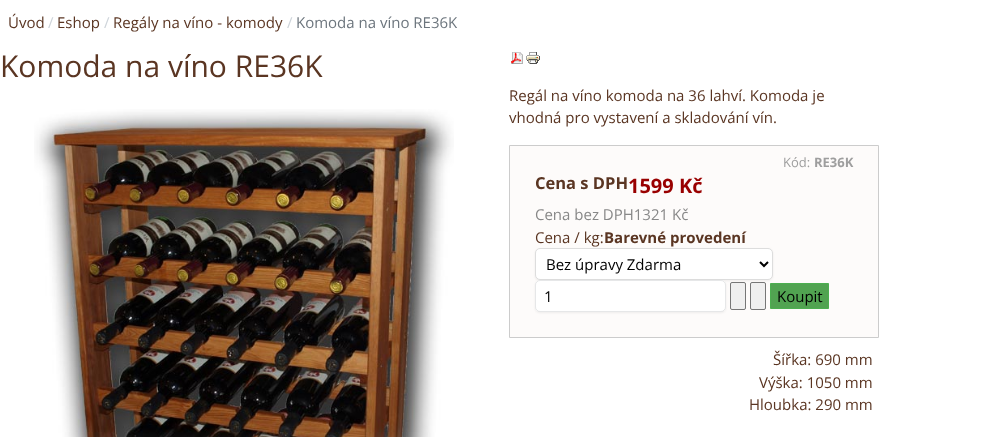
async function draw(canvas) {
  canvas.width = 988
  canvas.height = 437
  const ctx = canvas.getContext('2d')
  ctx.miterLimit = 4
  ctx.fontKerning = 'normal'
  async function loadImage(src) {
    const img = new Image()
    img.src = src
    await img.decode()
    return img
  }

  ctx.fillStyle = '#fff'
  ctx.fillRect(0, 0, 988, 437)
  ctx.font = '15px Open Sans'
  ctx.fillStyle = '#5a3522'
  ctx.fillText('Úvod', 8, 28)
  ctx.fillStyle = '#ced4da'
  ctx.fillText('/', 48, 28)
  ctx.fillStyle = '#5a3522'
  ctx.fillText('Eshop', 57, 28)
  ctx.fillStyle = '#ced4da'
  ctx.fillText('/', 104, 28)
  ctx.fillStyle = '#5a3522'
  ctx.fillText('Regály na víno - komody', 113, 28)
  ctx.fillStyle = '#ced4da'
  ctx.fillText('/', 287, 28)
  ctx.fillStyle = '#6c757d'
  ctx.fillText('Komoda na víno RE36K', 296, 28)
  ctx.font = '30px Open Sans'
  ctx.fillStyle = '#5a3522'
  ctx.fillText('Komoda na víno RE36K', 0, 77)
  ctx.drawImage(await loadImage('image0.png'), 34, 109, 420, 328)
  ctx.drawImage(await loadImage('image1.png'), 511, 52, 12, 12)
  ctx.drawImage(await loadImage('image2.png'), 526, 52, 14, 12)
  ctx.font = '15px Open Sans'
  ctx.fillText('Regál na víno komoda na 36 lahví. Komoda je', 509, 101)
  ctx.fillText('vhodná pro vystavení a skladování vín.', 509, 123)
  ctx.fillStyle = '#fdfbfa'
  ctx.beginPath()
  ctx.rect(509.5, 145.5, 369, 192)
  ctx.fill()
  ctx.strokeStyle = '#ccc'
  ctx.stroke()
  ctx.font = '13px Open Sans'
  ctx.fillStyle = '#9e9e9e'
  ctx.fillText('Kód:', 783, 167)
  ctx.font = 'bold 13px Open Sans'
  ctx.fillText('RE36K', 814, 167)
  ctx.font = 'bold 16.5px Open Sans'
  ctx.fillStyle = '#5a3522'
  ctx.fillText('Cena s DPH', 535, 189)
  ctx.font = 'bold 20px Open Sans'
  ctx.fillStyle = '#900'
  ctx.fillText('1599 Kč', 628, 193)
  ctx.font = '15px Open Sans'
  ctx.fillStyle = '#888'
  ctx.fillText('Cena bez DPH1321 Kč', 535, 220)
  ctx.fillStyle = '#5a3522'
  ctx.fillText('Cena / kg:', 535, 243)
  ctx.font = 'bold 15px Open Sans'
  ctx.fillText('Barevné provedení', 604, 243)
  ctx.fillStyle = '#b4b4b433'
  ctx.filter = 'blur(1px)'
  ctx.beginPath()
  ctx.roundRect(535, 249, 238, 32, 5)
  ctx.fill()
  ctx.filter = 'none'
  ctx.fillStyle = '#fff'
  ctx.beginPath()
  ctx.roundRect(535.5, 248.5, 237, 31, 4.5)
  ctx.fill()
  ctx.strokeStyle = '#ddd'
  ctx.stroke()
  ctx.beginPath()
  ctx.moveTo(760, 262)
  ctx.lineTo(764, 266)
  ctx.lineTo(768, 262)
  ctx.strokeStyle = '#000'
  ctx.lineWidth = 2
  ctx.stroke()
  ctx.font = '15px Open Sans'
  ctx.fillStyle = '#000'
  ctx.fillText('Bez úpravy Zdarma', 546, 270)
  ctx.fillStyle = '#b4b4b433'
  ctx.filter = 'blur(1px)'
  ctx.beginPath()
  ctx.roundRect(535, 281, 191, 32, 5)
  ctx.fill()
  ctx.filter = 'none'
  ctx.fillStyle = '#fff'
  ctx.beginPath()
  ctx.roundRect(535, 280, 191, 32, 5)
  ctx.fill()
  ctx.beginPath()
  ctx.roundRect(535.5, 280.5, 190, 31, 4.5)
  ctx.strokeStyle = '#343a401f'
  ctx.lineWidth = 1
  ctx.stroke()
  ctx.fillStyle = '#000'
  ctx.fillText('1', 544, 302)
  ctx.fillStyle = '#efefef'
  ctx.beginPath()
  ctx.roundRect(730.5, 282.5, 15, 27, 1.5)
  ctx.fill()
  ctx.strokeStyle = '#767676'
  ctx.stroke()
  ctx.beginPath()
  ctx.roundRect(750.5, 282.5, 15, 27, 1.5)
  ctx.fill()
  ctx.stroke()
  ctx.fillStyle = '#51a351'
  ctx.beginPath()
  ctx.rect(770.5, 283.5, 58, 25)
  ctx.fill()
  ctx.strokeStyle = '#4caf50'
  ctx.stroke()
  ctx.fillStyle = '#000'
  ctx.fillText('Koupit', 777, 302)
  ctx.fillStyle = '#5a3522'
  ctx.fillText('Šířka: 690 mm', 773, 365)
  ctx.fillText('Výška: 1050 mm', 759, 388)
  ctx.fillText('Hloubka: 290 mm', 749, 410)
}

draw(document.querySelector('canvas'))
